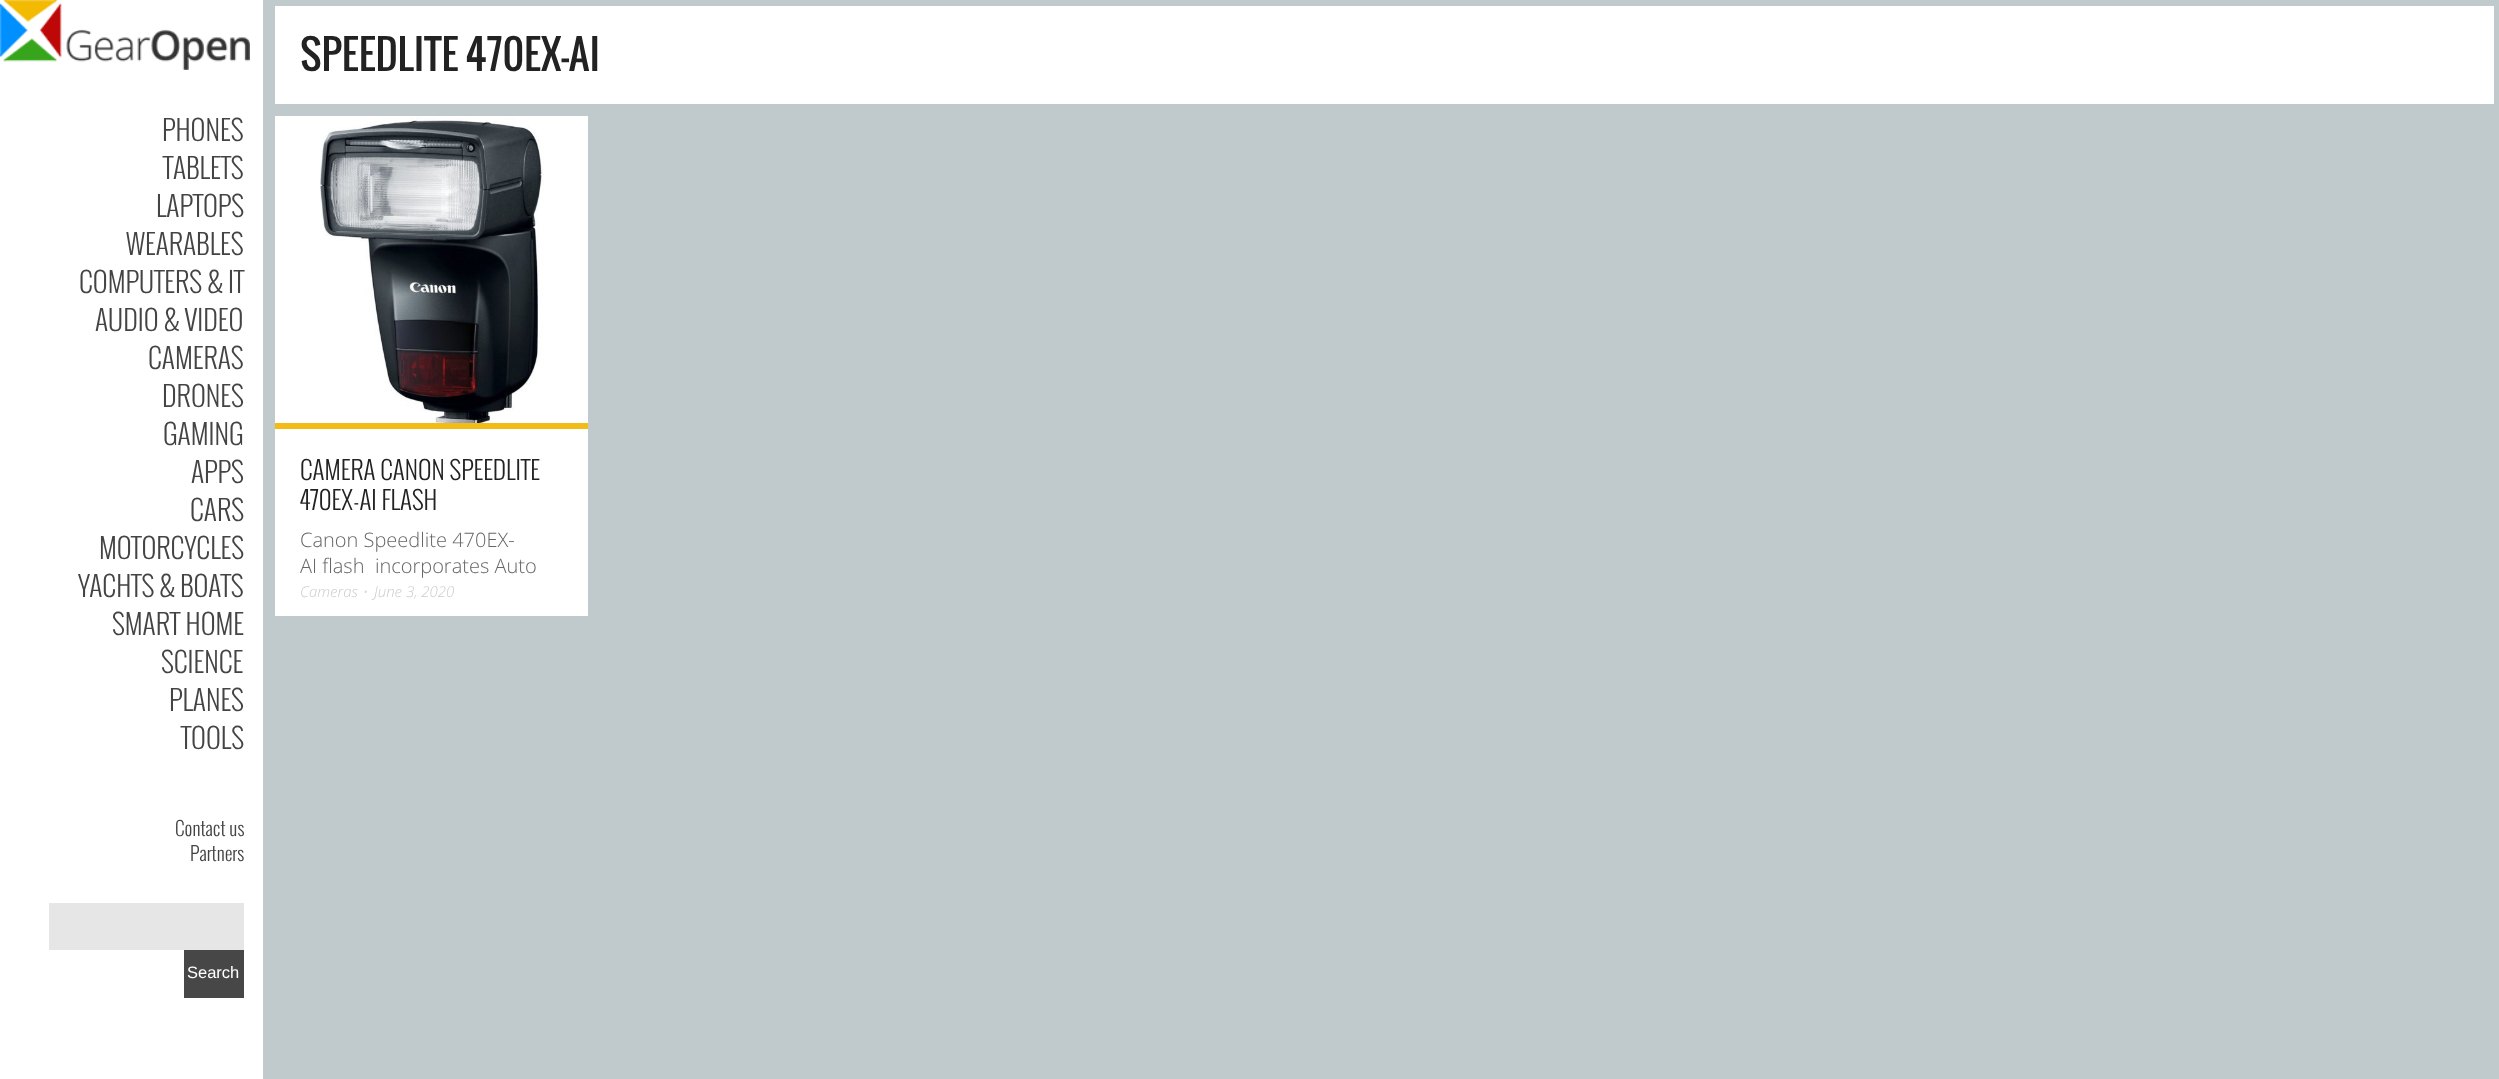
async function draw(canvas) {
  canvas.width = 2499
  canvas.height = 1079
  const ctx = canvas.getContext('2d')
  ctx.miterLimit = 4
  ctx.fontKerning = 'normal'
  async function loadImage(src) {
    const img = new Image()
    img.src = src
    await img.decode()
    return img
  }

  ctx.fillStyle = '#c0c9cc'
  ctx.fillRect(0, 0, 2499, 1079)
  ctx.fillStyle = '#fff'
  ctx.fillRect(0, 0, 263, 1079)
  ctx.fillRect(275, 6, 2219, 98)
  ctx.font = '40px Oswald'
  ctx.fillStyle = '#222'
  ctx.fillText('SPEEDLITE 470EX-AI', 300, 71)
  ctx.fillStyle = '#fff'
  ctx.fillRect(275, 116, 313, 500)
  ctx.drawImage(await loadImage('image0.png'), 320, 116, 224, 307)
  ctx.fillStyle = '#f2bb16'
  ctx.fillRect(275, 423, 313, 6)
  ctx.font = '300 25px Oswald'
  ctx.fillStyle = '#222'
  ctx.fillText('CAMERA CANON SPEEDLITE', 300, 480)
  ctx.fillText('470EX-AI FLASH', 300, 510)
  ctx.font = '300 20px Open Sans'
  ctx.fillStyle = '#666'
  ctx.fillText('Canon Speedlite 470EX-', 300, 547)
  ctx.fillText('AI flash  incorporates Auto', 300, 573)
  ctx.font = 'italic 300 15px Open Sans'
  ctx.fillStyle = '#ccc'
  ctx.fillText('Cameras', 300, 597)
  ctx.font = 'italic 15px DejaVu Sans'
  ctx.fillText('⋅', 362, 597)
  ctx.font = 'italic 300 15px Open Sans'
  ctx.fillText('June 3, 2020', 374, 597)
  ctx.drawImage(await loadImage('image1.png'), 0, 0, 250, 70)
  ctx.font = '300 27.5px Oswald'
  ctx.fillStyle = '#444'
  ctx.fillText('PHONES', 162, 141)
  ctx.fillText('TABLETS', 163, 179)
  ctx.fillText('LAPTOPS', 156, 217)
  ctx.fillText('WEARABLES', 126, 255)
  ctx.fillText('COMPUTERS & IT', 79, 293)
  ctx.fillText('AUDIO & VIDEO', 95, 331)
  ctx.fillText('CAMERAS', 148, 369)
  ctx.fillText('DRONES', 162, 407)
  ctx.fillText('GAMING', 163, 445)
  ctx.fillText('APPS', 191, 483)
  ctx.fillText('CARS', 190, 521)
  ctx.fillText('MOTORCYCLES', 99, 559)
  ctx.fillText('YACHTS & BOATS', 78, 597)
  ctx.fillText('SMART HOME', 112, 635)
  ctx.fillText('SCIENCE', 161, 673)
  ctx.fillText('PLANES', 169, 711)
  ctx.fillText('TOOLS', 181, 749)
  ctx.font = '300 19px Oswald'
  ctx.fillText('Contact us', 175, 836)
  ctx.fillText('Partners', 190, 861)
  ctx.fillStyle = '#e6e6e6'
  ctx.fillRect(49, 903, 195, 47)
  ctx.fillStyle = '#474747'
  ctx.fillRect(184, 950, 60, 48)
  ctx.font = '16.5px Liberation Sans'
  ctx.fillStyle = '#fff'
  ctx.fillText('Search', 187, 978)
}

draw(document.querySelector('canvas'))
